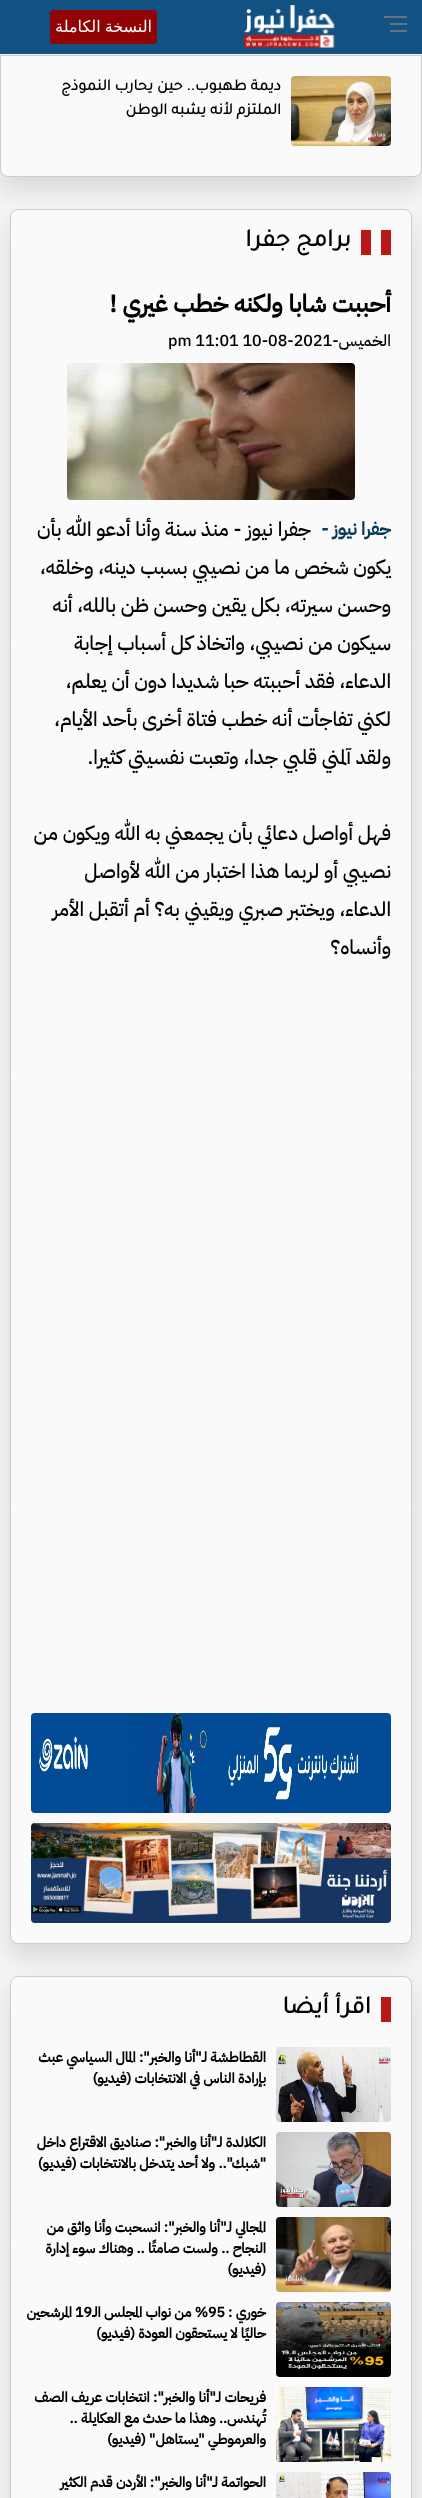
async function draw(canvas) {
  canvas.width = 422
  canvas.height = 2498
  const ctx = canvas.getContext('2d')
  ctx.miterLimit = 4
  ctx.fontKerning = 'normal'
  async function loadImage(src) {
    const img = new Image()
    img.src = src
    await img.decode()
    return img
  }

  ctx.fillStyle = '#f5f5f5'
  ctx.fillRect(0, 0, 422, 2498)
  ctx.fillStyle = '#999da052'
  ctx.filter = 'blur(12px)'
  ctx.beginPath()
  ctx.roundRect(0, 68, 422, 122, 8)
  ctx.fill()
  ctx.filter = 'none'
  ctx.fillStyle = '#fafafa'
  ctx.beginPath()
  ctx.roundRect(0.5, 55.5, 421, 121, [0, 0, 7.5, 7.5])
  ctx.fill()
  ctx.strokeStyle = '#ccc'
  ctx.stroke()
  ctx.fillStyle = '#0000004d'
  ctx.filter = 'blur(0.5px)'
  ctx.beginPath()
  ctx.rect(0, 0, 422, 54)
  ctx.fill()
  ctx.filter = 'none'
  ctx.fillStyle = '#125282'
  ctx.fillRect(0, 0, 422, 54)
  ctx.fillStyle = '#6a717f'
  ctx.fillRect(390, 23, 17, 2)
  ctx.fillRect(384, 16, 23, 2)
  ctx.fillRect(390, 30, 17, 2)
  ctx.drawImage(await loadImage('image0.png'), 244, 5, 91, 43)
  ctx.fillStyle = '#920306'
  ctx.beginPath()
  ctx.roundRect(50, 10, 107, 34, 4)
  ctx.fill()
  ctx.wordSpacing = '-1px'
  ctx.direction = 'rtl'
  ctx.font = '16px DejaVu Sans'
  ctx.fillStyle = '#fff'
  ctx.fillText('النسخة الكاملة', 152, 32)
  ctx.drawImage(await loadImage('image1.png'), 291, 76, 100, 70)
  ctx.wordSpacing = '0px'
  ctx.font = 'bold 16px Tajawal'
  ctx.fillStyle = '#000'
  ctx.fillText('ديمة طهبوب.. حين يحارب النموذج', 281, 90)
  ctx.fillText('الملتزم لأنه يشبه الوطن', 281, 114)
  ctx.save()
  ctx.beginPath()
  ctx.rect(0, 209, 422, 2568)
  ctx.clip()
  ctx.fillStyle = '#999da052'
  ctx.filter = 'blur(12px)'
  ctx.beginPath()
  ctx.roundRect(10, 222, 402, 1735, 8)
  ctx.fill()
  ctx.filter = 'none'
  ctx.restore()
  ctx.fillStyle = '#fafafa'
  ctx.beginPath()
  ctx.roundRect(10.5, 209.5, 401, 1734, 7.5)
  ctx.fill()
  ctx.stroke()
  ctx.fillStyle = '#ba1717'
  ctx.fillRect(381, 230, 10, 25)
  ctx.font = 'bold 25px Tajawal'
  ctx.fillStyle = '#000'
  ctx.fillText('برامج جفرا', 351, 246)
  ctx.fillStyle = '#ba1717'
  ctx.fillRect(361, 230, 10, 25)
  ctx.font = 'bold 24px IBM Plex Sans Arabic'
  ctx.fillStyle = '#000'
  ctx.fillText('أحببت شابا ولكنه خطب غيري !', 391, 312)
  ctx.font = '500 16px IBM Plex Sans Arabic'
  ctx.fillText('الخميس-', 391, 346)
  ctx.direction = 'ltr'
  ctx.fillText('pm 11:01 10-08-2021', 168, 346)
  ctx.drawImage(await loadImage('image2.png'), 67, 363, 288, 137)
  ctx.direction = 'rtl'
  ctx.font = '500 20px IBM Plex Sans Arabic'
  ctx.fillText('جفرا نيوز - منذ سنة وأنا أدعو الله بأن', 311, 536)
  ctx.fillText('يكون شخص ما من نصيبي بسبب دينه، وخلقه،', 391, 574)
  ctx.fillText('وحسن سيرته، بكل يقين وحسن ظن بالله، أنه', 391, 612)
  ctx.fillText('سيكون من نصيبي، واتخاذ كل أسباب إجابة', 391, 650)
  ctx.fillText('الدعاء، فقد أحببته حبا شديدا دون أن يعلم،', 391, 688)
  ctx.fillText('لكني تفاجأت أنه خطب فتاة أخرى بأحد الأيام،', 391, 726)
  ctx.fillText('ولقد آلمني قلبي جدا، وتعبت نفسيتي كثيرا.', 391, 764)
  ctx.fillText('فهل أواصل دعائي بأن يجمعني به الله ويكون من', 391, 840)
  ctx.fillText('نصيبي أو لربما هذا اختبار من الله لأواصل', 391, 878)
  ctx.fillText('الدعاء، ويختبر صبري ويقيني به؟ أم أتقبل الأمر', 391, 916)
  ctx.fillText('وأنساه؟', 391, 954)
  ctx.font = 'bold 18px IBM Plex Sans Arabic'
  ctx.fillStyle = '#083a5b'
  ctx.fillText('جفرا نيوز -', 391, 535)
  ctx.drawImage(await loadImage('image3.png'), 31, 1713, 360, 100)
  ctx.drawImage(await loadImage('image4.png'), 31, 1823, 360, 100)
  ctx.fillStyle = '#999da052'
  ctx.filter = 'blur(12px)'
  ctx.beginPath()
  ctx.roundRect(10, 1989, 402, 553, 8)
  ctx.fill()
  ctx.filter = 'none'
  ctx.fillStyle = '#fafafa'
  ctx.beginPath()
  ctx.roundRect(10.5, 1976.5, 401, 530, 7.5)
  ctx.fill()
  ctx.stroke()
  ctx.font = 'bold 25px Tajawal'
  ctx.fillStyle = '#000'
  ctx.fillText('اقرأ أيضا', 371, 2013)
  ctx.fillStyle = '#ba1717'
  ctx.fillRect(381, 1997, 10, 25)
  ctx.drawImage(await loadImage('image5.png'), 276, 2047, 115, 75)
  ctx.font = 'bold 14px IBM Plex Sans Arabic'
  ctx.fillStyle = '#000'
  ctx.fillText('القطاطشة لـ"أنا والخبر": المال السياسي عبث', 266, 2062)
  ctx.fillText('بإرادة الناس في الانتخابات (فيديو)', 266, 2083)
  ctx.drawImage(await loadImage('image6.png'), 276, 2132, 115, 75)
  ctx.fillText('الكلالدة لـ"أنا والخبر": صناديق الاقتراع داخل', 266, 2147)
  ctx.fillText('"شبك".. ولا أحد يتدخل بالانتخابات (فيديو)', 266, 2168)
  ctx.drawImage(await loadImage('image7.png'), 276, 2217, 115, 75)
  ctx.fillText('المجالي لـ"أنا والخبر": انسحبت وأنا واثق من', 266, 2232)
  ctx.fillText('النجاح .. ولست صامتًا .. وهناك سوء إدارة', 266, 2253)
  ctx.fillText('(فيديو)', 266, 2274)
  ctx.drawImage(await loadImage('image8.png'), 276, 2302, 115, 75)
  ctx.fillText('خوري :', 266, 2317)
  ctx.direction = 'ltr'
  ctx.fillText('95', 208, 2317)
  ctx.fillText('19', 75, 2317)
  ctx.direction = 'rtl'
  ctx.fillText('% من نواب المجلس الـ', 208, 2317)
  ctx.fillText('المرشحين', 72, 2317)
  ctx.fillText('حاليًا لا يستحقون العودة (فيديو)', 266, 2338)
  ctx.drawImage(await loadImage('image9.png'), 276, 2387, 115, 75)
  ctx.fillText('فريحات لـ"أنا والخبر": انتخابات عريف الصف', 266, 2402)
  ctx.fillText('تُهندس.. وهذا ما حدث مع العكايلة ..', 266, 2423)
  ctx.fillText('والعرموطي "يستاهل" (فيديو)', 266, 2444)
  ctx.drawImage(await loadImage('image10.png'), 276, 2472, 115, 26)
  ctx.fillText('الحواتمة لـ"أنا والخبر": الأردن قدم الكثير', 266, 2487)
}

draw(document.querySelector('canvas'))
